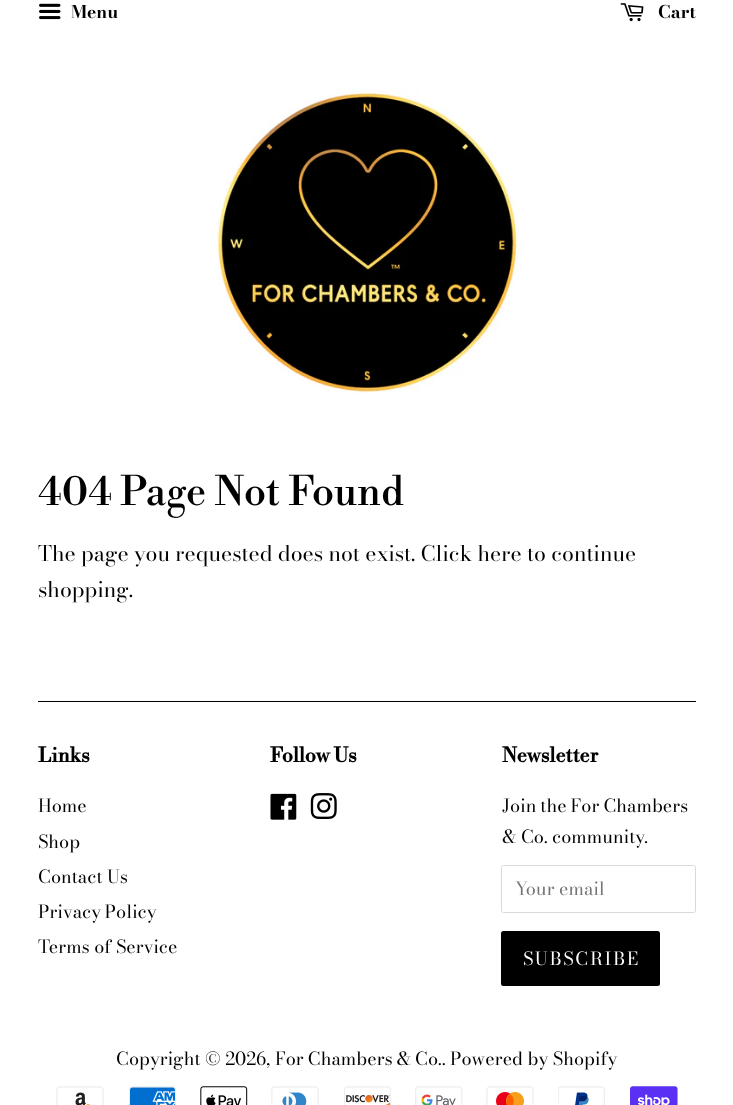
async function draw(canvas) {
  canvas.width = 733
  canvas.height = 1105
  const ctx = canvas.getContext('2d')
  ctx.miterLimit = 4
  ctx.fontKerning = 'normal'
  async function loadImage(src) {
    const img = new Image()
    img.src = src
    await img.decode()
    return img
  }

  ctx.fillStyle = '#fff'
  ctx.fillRect(0, 0, 733, 1105)
  ctx.drawImage(await loadImage('image0.png'), 39, 3, 22, 17)
  ctx.font = 'bold 17.5px Bodoni Moda'
  ctx.fillStyle = '#000'
  ctx.fillText('Menu', 71, 18)
  ctx.drawImage(await loadImage('image1.png'), 620, 3, 24, 19)
  ctx.fillText('Cart', 658, 18)
  ctx.drawImage(await loadImage('image2.png'), 217, 88, 301, 305)
  ctx.font = '40px Libre Bodoni'
  ctx.fillText('404 Page Not Found', 38, 505)
  ctx.font = '21.25px Bodoni Moda'
  ctx.fillText('The page you requested does not exist. Click here to continue', 38, 561)
  ctx.fillText('shopping.', 38, 597)
  ctx.fillRect(38, 701, 658, 1)
  ctx.font = 'bold 20px Libre Bodoni'
  ctx.fillText('Links', 38, 762)
  ctx.font = '18px "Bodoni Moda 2"'
  ctx.fillText('Home', 38, 812)
  ctx.fillText('Shop', 38, 848)
  ctx.fillText('Contact Us', 38, 883)
  ctx.wordSpacing = '-1px'
  ctx.fillText('Privacy Policy', 38, 918)
  ctx.wordSpacing = '0px'
  ctx.fillText('Terms of Service', 38, 953)
  ctx.font = 'bold 20px Libre Bodoni'
  ctx.fillText('Follow Us', 270, 762)
  ctx.drawImage(await loadImage('image3.png'), 270, 793, 27, 27)
  ctx.drawImage(await loadImage('image4.png'), 310, 793, 27, 26)
  ctx.fillText('Newsletter', 502, 762)
  ctx.wordSpacing = '-0.5px'
  ctx.font = '18px "Bodoni Moda 2"'
  ctx.fillText('Join the For Chambers', 502, 812)
  ctx.wordSpacing = '0px'
  ctx.fillText('& Co. community.', 502, 843)
  ctx.beginPath()
  ctx.roundRect(501.5, 865.5, 194, 47, 2)
  ctx.strokeStyle = '#d9d9d9'
  ctx.stroke()
  ctx.fillStyle = '#757575'
  ctx.fillText('Your email', 515, 895)
  ctx.fillStyle = '#000'
  ctx.beginPath()
  ctx.roundRect(501, 931, 159, 55, 2.5)
  ctx.fill()
  ctx.letterSpacing = '1.75px'
  ctx.fillStyle = '#fff'
  ctx.fillText('SUBSCRIBE', 523, 965)
  ctx.letterSpacing = '0px'
  ctx.fillStyle = '#000'
  ctx.fillText('Copyright © 2026,', 116, 1065)
  ctx.wordSpacing = '-0.5px'
  ctx.fillText('For Chambers & Co.', 275, 1065)
  ctx.wordSpacing = '0px'
  ctx.fillText('.', 442, 1065)
  ctx.fillText('Powered by Shopify', 450, 1065)
  ctx.drawImage(await loadImage('image5.png'), 56, 1086, 48, 19)
  ctx.drawImage(await loadImage('image6.png'), 129, 1086, 47, 19)
  ctx.drawImage(await loadImage('image7.png'), 200, 1086, 48, 19)
  ctx.drawImage(await loadImage('image8.png'), 271, 1086, 48, 19)
  ctx.drawImage(await loadImage('image9.png'), 344, 1086, 47, 19)
  ctx.drawImage(await loadImage('image10.png'), 415, 1086, 48, 19)
  ctx.drawImage(await loadImage('image11.png'), 486, 1086, 48, 19)
  ctx.drawImage(await loadImage('image12.png'), 558, 1086, 47, 19)
  ctx.drawImage(await loadImage('image13.png'), 630, 1086, 48, 19)
}

draw(document.querySelector('canvas'))
